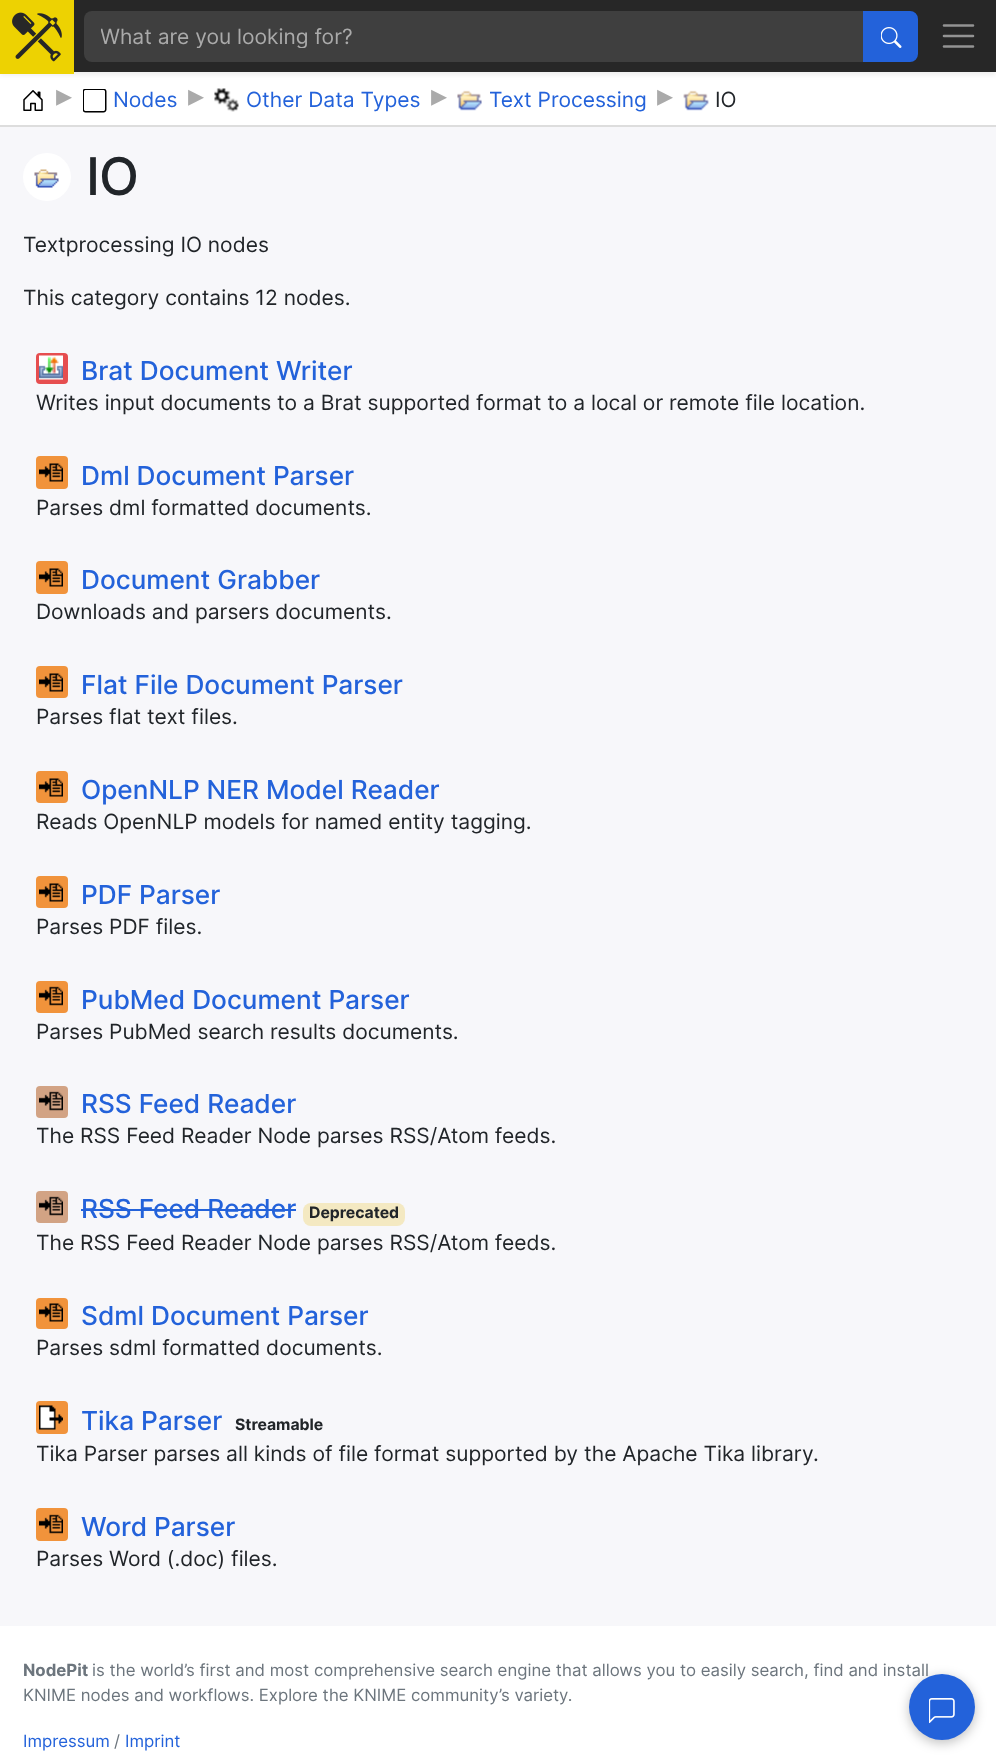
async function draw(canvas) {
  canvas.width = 996
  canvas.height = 1761
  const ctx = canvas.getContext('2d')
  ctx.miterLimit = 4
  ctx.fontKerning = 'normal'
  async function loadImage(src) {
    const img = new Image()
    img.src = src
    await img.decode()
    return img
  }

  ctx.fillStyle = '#f7f7fa'
  ctx.fillRect(0, 0, 996, 1761)
  ctx.fillStyle = '#fff'
  ctx.fillRect(0, 72, 996, 53)
  ctx.fillStyle = '#00000012'
  ctx.filter = 'blur(2.5px)'
  ctx.beginPath()
  ctx.rect(0, 3, 996, 72)
  ctx.fill()
  ctx.filter = 'none'
  ctx.fillStyle = '#272727'
  ctx.fillRect(74, 0, 922, 72)
  ctx.fillStyle = '#edd202'
  ctx.fillRect(0, 0, 74, 74)
  ctx.drawImage(await loadImage('image0.png'), 12, 12, 50, 50)
  ctx.fillStyle = '#3f3f3f'
  ctx.beginPath()
  ctx.roundRect(84, 11, 780, 51, [8, 0, 0, 8])
  ctx.fill()
  ctx.save()
  ctx.beginPath()
  ctx.rect(101, 23, 748, 25)
  ctx.clip()
  ctx.font = '21px Inter'
  ctx.fillStyle = '#aaa'
  ctx.fillText('What are you looking for?', 100, 44)
  ctx.restore()
  ctx.fillStyle = '#2362da'
  ctx.beginPath()
  ctx.roundRect(864, 12, 53, 49, [0, 7, 7, 0])
  ctx.fill()
  ctx.strokeStyle = '#2362da'
  ctx.lineWidth = 2
  ctx.stroke()
  ctx.drawImage(await loadImage('image1.png'), 881, 27, 21, 21)
  ctx.beginPath()
  ctx.moveTo(944, 25.5)
  ctx.lineTo(973, 25.5)
  ctx.moveTo(944, 36)
  ctx.lineTo(973, 36)
  ctx.moveTo(944, 46.5)
  ctx.lineTo(973, 46.5)
  ctx.strokeStyle = '#939393'
  ctx.lineWidth = 2.6
  ctx.lineCap = 'round'
  ctx.stroke()
  ctx.fillStyle = '#ddd'
  ctx.fillRect(0, 125, 996, 2)
  ctx.drawImage(await loadImage('image2.png'), 23, 90, 20, 21)
  ctx.font = '32px DejaVu Sans'
  ctx.fillStyle = '#aaa'
  ctx.fillText('▸', 56, 106)
  ctx.drawImage(await loadImage('image3.png'), 83, 89, 24, 24)
  ctx.font = '21px Inter'
  ctx.fillStyle = '#2362da'
  ctx.fillText('Nodes', 113, 107)
  ctx.font = '32px DejaVu Sans'
  ctx.fillStyle = '#aaa'
  ctx.fillText('▸', 188, 106)
  ctx.drawImage(await loadImage('image4.png'), 214, 88, 25, 24)
  ctx.font = '21px Inter'
  ctx.fillStyle = '#2362da'
  ctx.fillText('Other Data Types', 246, 107)
  ctx.font = '32px DejaVu Sans'
  ctx.fillStyle = '#aaa'
  ctx.fillText('▸', 431, 106)
  ctx.drawImage(await loadImage('image5.png'), 457, 90, 25, 21)
  ctx.font = '21px Inter'
  ctx.fillStyle = '#2362da'
  ctx.fillText('Text Processing', 489, 107)
  ctx.font = '32px DejaVu Sans'
  ctx.fillStyle = '#aaa'
  ctx.fillText('▸', 657, 106)
  ctx.drawImage(await loadImage('image6.png'), 683, 90, 26, 21)
  ctx.font = '21px Inter'
  ctx.fillStyle = '#212529'
  ctx.fillText('IO', 715, 107)
  ctx.fillStyle = '#fff'
  ctx.beginPath()
  ctx.arc(47, 177, 24, 0, 2 * Math.PI)
  ctx.fill()
  ctx.drawImage(await loadImage('image7.png'), 34, 169, 25, 19)
  ctx.letterSpacing = '-1px'
  ctx.font = '500 52px Inter'
  ctx.fillStyle = '#212529'
  ctx.fillText('IO', 86, 195)
  ctx.letterSpacing = '0px'
  ctx.font = '21px Inter'
  ctx.fillText('Textprocessing IO nodes', 23, 252)
  ctx.fillText('This category contains 12 nodes.', 23, 305)
  ctx.fillStyle = '#e64e4f'
  ctx.beginPath()
  ctx.roundRect(36, 353, 32, 31, 4)
  ctx.fill()
  ctx.drawImage(await loadImage('image8.png'), 39, 355, 24, 25)
  ctx.font = '500 26.25px Inter'
  ctx.fillStyle = '#2362da'
  ctx.fillText('Brat Document Writer', 81, 380)
  ctx.font = '21px Inter'
  ctx.fillStyle = '#212529'
  ctx.fillText('Writes input documents to a Brat supported format to a local or remote file location.', 36, 410)
  ctx.fillStyle = '#f1933b'
  ctx.beginPath()
  ctx.roundRect(36, 456, 32, 33, 4)
  ctx.fill()
  ctx.drawImage(await loadImage('image9.png'), 39, 463, 24, 19)
  ctx.font = '500 26.25px Inter'
  ctx.fillStyle = '#2362da'
  ctx.fillText('Dml Document Parser', 81, 485)
  ctx.font = '21px Inter'
  ctx.fillStyle = '#212529'
  ctx.fillText('Parses dml formatted documents.', 36, 515)
  ctx.fillStyle = '#f1933b'
  ctx.beginPath()
  ctx.roundRect(36, 561, 32, 33, 4)
  ctx.fill()
  ctx.drawImage(await loadImage('image9.png'), 39, 568, 24, 19)
  ctx.font = '500 26.25px Inter'
  ctx.fillStyle = '#2362da'
  ctx.fillText('Document Grabber', 81, 589)
  ctx.font = '21px Inter'
  ctx.fillStyle = '#212529'
  ctx.fillText('Downloads and parsers documents.', 36, 619)
  ctx.fillStyle = '#f1933b'
  ctx.beginPath()
  ctx.roundRect(36, 666, 32, 32, 4)
  ctx.fill()
  ctx.drawImage(await loadImage('image9.png'), 39, 673, 24, 19)
  ctx.font = '500 26.25px Inter'
  ctx.fillStyle = '#2362da'
  ctx.fillText('Flat File Document Parser', 81, 694)
  ctx.font = '21px Inter'
  ctx.fillStyle = '#212529'
  ctx.fillText('Parses flat text files.', 36, 724)
  ctx.fillStyle = '#f1933b'
  ctx.beginPath()
  ctx.roundRect(36, 771, 32, 32, 4)
  ctx.fill()
  ctx.drawImage(await loadImage('image9.png'), 39, 778, 24, 19)
  ctx.font = '500 26.25px Inter'
  ctx.fillStyle = '#2362da'
  ctx.fillText('OpenNLP NER Model Reader', 81, 799)
  ctx.font = '21px Inter'
  ctx.fillStyle = '#212529'
  ctx.fillText('Reads OpenNLP models for named entity tagging.', 36, 829)
  ctx.fillStyle = '#f1933b'
  ctx.beginPath()
  ctx.roundRect(36, 876, 32, 32, 4)
  ctx.fill()
  ctx.drawImage(await loadImage('image9.png'), 39, 883, 24, 19)
  ctx.font = '500 26.25px Inter'
  ctx.fillStyle = '#2362da'
  ctx.fillText('PDF Parser', 81, 904)
  ctx.font = '21px Inter'
  ctx.fillStyle = '#212529'
  ctx.fillText('Parses PDF files.', 36, 934)
  ctx.fillStyle = '#f1933b'
  ctx.beginPath()
  ctx.roundRect(36, 981, 32, 32, 4)
  ctx.fill()
  ctx.drawImage(await loadImage('image10.png'), 39, 986, 24, 20)
  ctx.font = '500 26.25px Inter'
  ctx.fillStyle = '#2362da'
  ctx.fillText('PubMed Document Parser', 81, 1009)
  ctx.font = '21px Inter'
  ctx.fillStyle = '#212529'
  ctx.fillText('Parses PubMed search results documents.', 36, 1039)
  ctx.fillStyle = '#d2a384'
  ctx.beginPath()
  ctx.roundRect(36, 1086, 32, 32, 4)
  ctx.fill()
  ctx.drawImage(await loadImage('image11.png'), 39, 1091, 24, 20)
  ctx.font = '500 26.25px Inter'
  ctx.fillStyle = '#2362da'
  ctx.fillText('RSS Feed Reader', 81, 1113)
  ctx.font = '21px Inter'
  ctx.fillStyle = '#212529'
  ctx.fillText('The RSS Feed Reader Node parses RSS/Atom feeds.', 36, 1143)
  ctx.fillStyle = '#d2a384'
  ctx.beginPath()
  ctx.roundRect(36, 1191, 32, 32, 4)
  ctx.fill()
  ctx.drawImage(await loadImage('image11.png'), 39, 1196, 24, 20)
  ctx.font = '500 26.25px Inter'
  ctx.fillStyle = '#2362da'
  ctx.fillText('RSS Feed Reader', 81, 1218)
  ctx.fillRect(81, 1209, 215, 2)
  ctx.fillStyle = '#f4e9c2'
  ctx.beginPath()
  ctx.roundRect(303, 1203, 102, 23, 8)
  ctx.fill()
  ctx.font = 'bold 15.75px Inter'
  ctx.fillStyle = '#212529'
  ctx.fillText('Deprecated', 309, 1218)
  ctx.font = '21px Inter'
  ctx.fillText('The RSS Feed Reader Node parses RSS/Atom feeds.', 36, 1250)
  ctx.fillStyle = '#f1933b'
  ctx.beginPath()
  ctx.roundRect(36, 1298, 32, 31, 4)
  ctx.fill()
  ctx.drawImage(await loadImage('image9.png'), 39, 1303, 24, 19)
  ctx.font = '500 26.25px Inter'
  ctx.fillStyle = '#2362da'
  ctx.fillText('Sdml Document Parser', 81, 1325)
  ctx.font = '21px Inter'
  ctx.fillStyle = '#212529'
  ctx.fillText('Parses sdml formatted documents.', 36, 1355)
  ctx.fillStyle = '#f1933b'
  ctx.beginPath()
  ctx.roundRect(36, 1401, 32, 33, 4)
  ctx.fill()
  ctx.drawImage(await loadImage('image12.png'), 39, 1405, 24, 25)
  ctx.font = '500 26.25px Inter'
  ctx.fillStyle = '#2362da'
  ctx.fillText('Tika Parser', 81, 1430)
  ctx.font = 'bold 15.75px Inter'
  ctx.fillStyle = '#212529'
  ctx.fillText('Streamable', 235, 1430)
  ctx.font = '21px Inter'
  ctx.fillText('Tika Parser parses all kinds of file format supported by the Apache Tika library.', 36, 1461)
  ctx.fillStyle = '#f1933b'
  ctx.beginPath()
  ctx.roundRect(36, 1508, 32, 33, 4)
  ctx.fill()
  ctx.drawImage(await loadImage('image10.png'), 39, 1514, 24, 20)
  ctx.font = '500 26.25px Inter'
  ctx.fillStyle = '#2362da'
  ctx.fillText('Word Parser', 81, 1536)
  ctx.font = '21px Inter'
  ctx.fillStyle = '#212529'
  ctx.fillText('Parses Word (.doc) files.', 36, 1566)
  ctx.fillStyle = '#fff'
  ctx.fillRect(0, 1626, 996, 135)
  ctx.font = 'bold 16.8px Inter'
  ctx.fillStyle = '#6c757d'
  ctx.fillText('NodePit', 23, 1676)
  ctx.font = '16.8px Inter'
  ctx.fillText('is the world’s first and most comprehensive search engine that allows you to easily search, find and install', 92, 1676)
  ctx.fillText('KNIME nodes and workflows. Explore the KNIME community’s variety.', 23, 1701)
  ctx.fillStyle = '#2362da'
  ctx.fillText('Impressum', 23, 1747)
  ctx.fillStyle = '#6c757d'
  ctx.fillText('/', 114, 1747)
  ctx.fillStyle = '#2362da'
  ctx.fillText('Imprint', 125, 1747)
  ctx.fillStyle = '#00000040'
  ctx.filter = 'blur(6px)'
  ctx.beginPath()
  ctx.roundRect(909, 1677, 66, 66, 33)
  ctx.fill()
  ctx.filter = 'none'
  ctx.fillStyle = '#2362da'
  ctx.beginPath()
  ctx.arc(942, 1707, 33, 0, 2 * Math.PI)
  ctx.fill()
  ctx.drawImage(await loadImage('image13.png'), 929, 1698, 26, 26)
}

draw(document.querySelector('canvas'))
